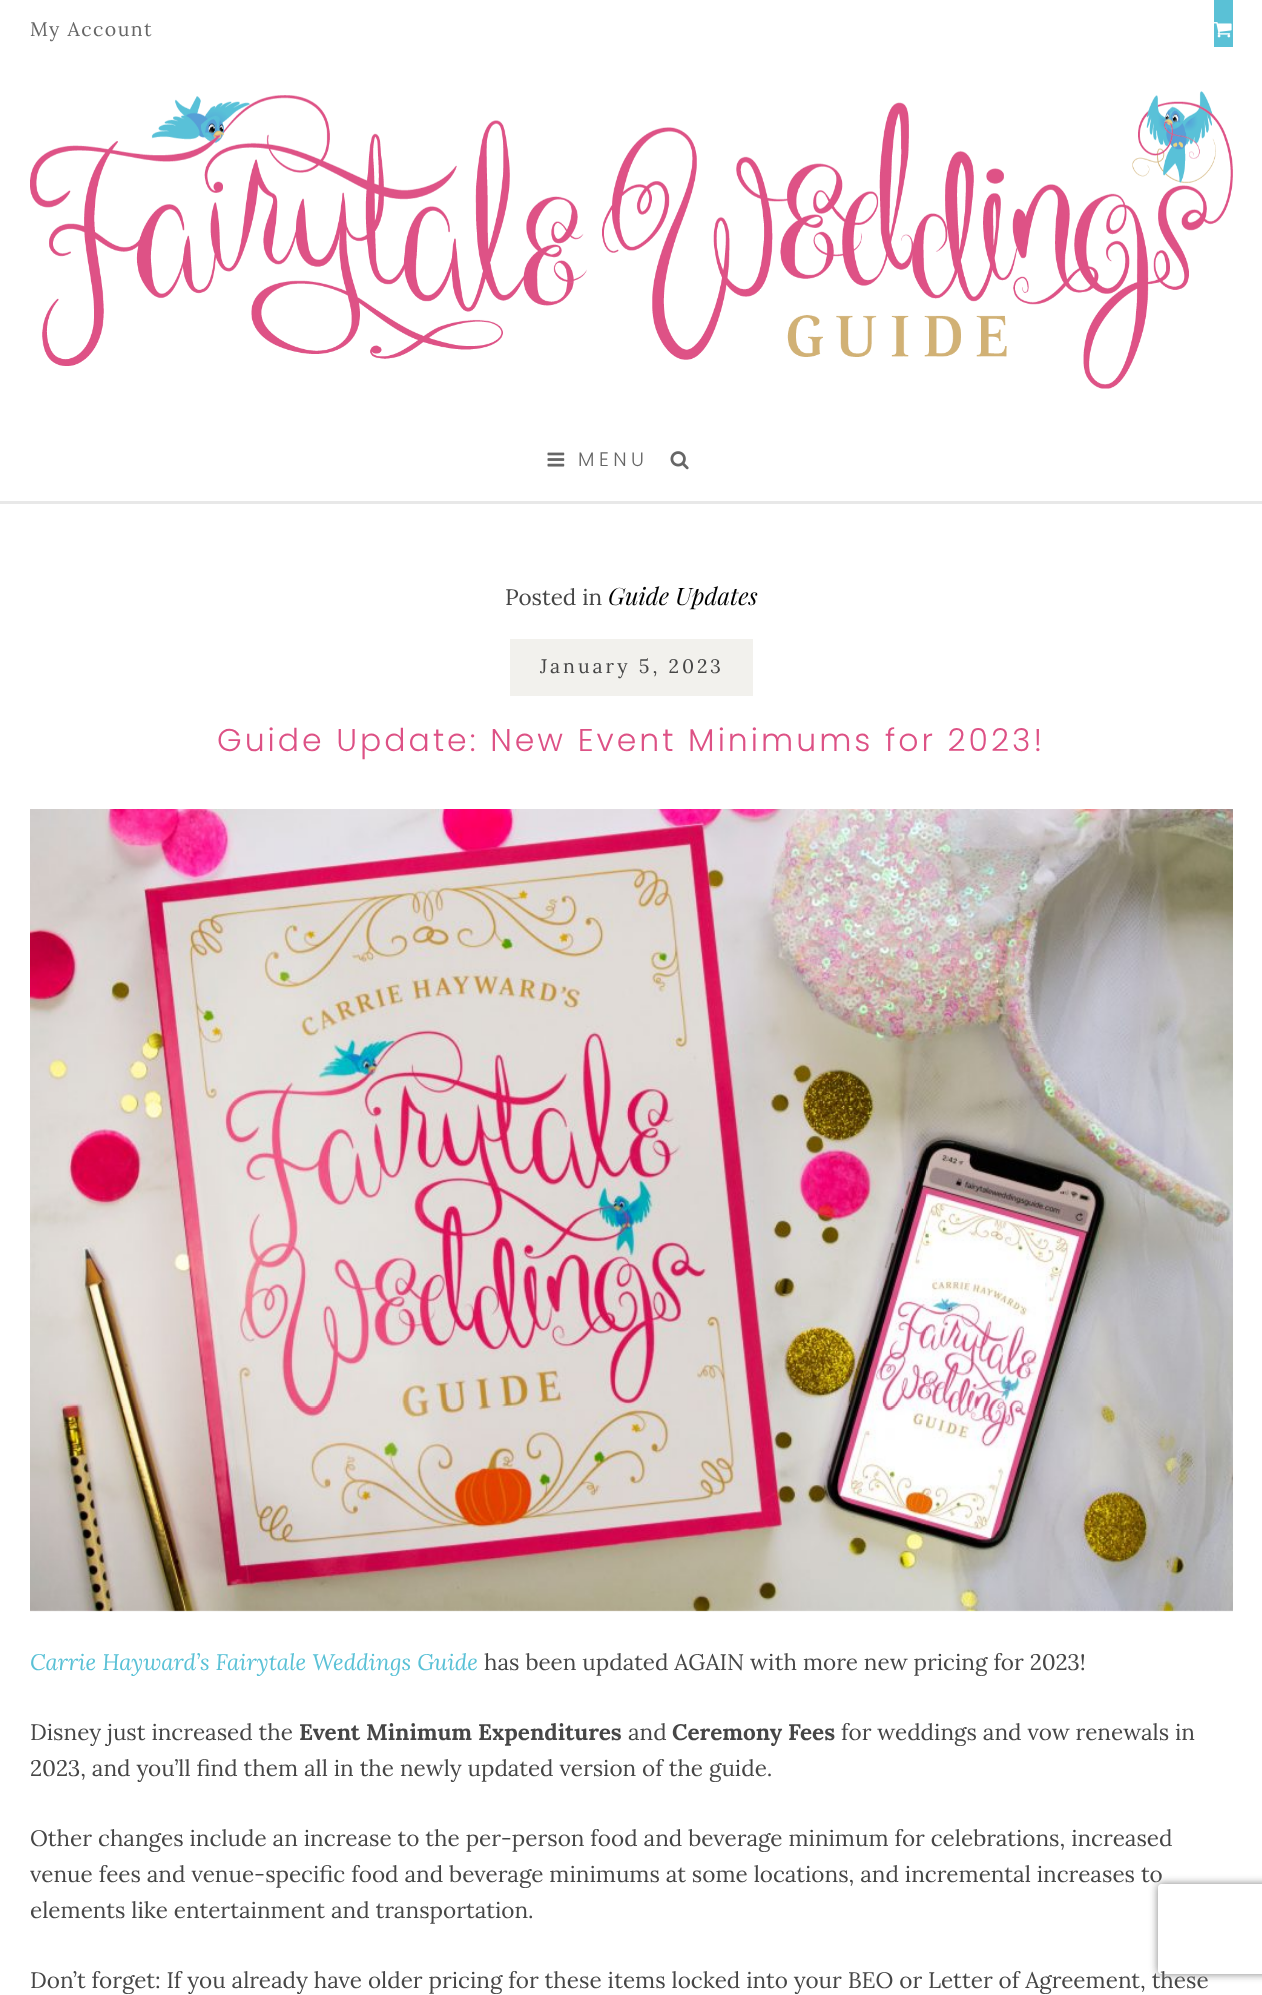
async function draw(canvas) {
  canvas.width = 1262
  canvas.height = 1995
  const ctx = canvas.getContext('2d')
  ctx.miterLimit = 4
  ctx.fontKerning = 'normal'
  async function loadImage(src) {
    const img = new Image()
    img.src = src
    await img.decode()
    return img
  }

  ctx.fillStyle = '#fff'
  ctx.fillRect(0, 0, 1262, 1995)
  ctx.letterSpacing = '1.5px'
  ctx.font = '19.5px Lora'
  ctx.fillStyle = '#666'
  ctx.fillText('My Account', 30, 36)
  ctx.fillStyle = '#5ac1d6'
  ctx.fillRect(1214, 0, 19, 47)
  ctx.drawImage(await loadImage('image0.png'), 1214, 22, 18, 16)
  ctx.drawImage(await loadImage('image1.png'), 30, 91, 1203, 298)
  ctx.fillStyle = '#e8e8e8'
  ctx.fillRect(0, 501, 1262, 3)
  ctx.drawImage(await loadImage('image2.png'), 547, 452, 18, 15)
  ctx.letterSpacing = '4.5px'
  ctx.font = '300 19.5px Poppins'
  ctx.fillStyle = '#666'
  ctx.fillText('MENU', 578, 466)
  ctx.drawImage(await loadImage('image3.png'), 670, 451, 19, 19)
  ctx.letterSpacing = '0px'
  ctx.font = '22.5px Lora'
  ctx.fillStyle = '#464646'
  ctx.fillText('Posted in', 505, 605)
  ctx.font = 'italic 24px Playfair Display'
  ctx.fillStyle = '#000'
  ctx.fillText('Guide Updates', 608, 605)
  ctx.fillStyle = '#f2f1ed'
  ctx.fillRect(510, 639, 243, 57)
  ctx.letterSpacing = '3px'
  ctx.font = '19.5px Lora'
  ctx.fillStyle = '#464646'
  ctx.fillText('January 5, 2023', 540, 673)
  ctx.font = '300 31.5px Poppins'
  ctx.fillStyle = '#dd5185'
  ctx.fillText('Guide Update: New Event Minimums for 2023!', 217, 751)
  ctx.drawImage(await loadImage('image4.png'), 30, 809, 1203, 803)
  ctx.letterSpacing = '0px'
  ctx.font = 'italic 22.5px Lora'
  ctx.fillStyle = '#5ac1d6'
  ctx.fillText('Carrie Hayward’s Fairytale Weddings Guide', 30, 1670)
  ctx.font = '22.5px Lora'
  ctx.fillStyle = '#464646'
  ctx.fillText('has been updated AGAIN with more new pricing for 2023!', 484, 1670)
  ctx.fillText('Disney just increased the', 30, 1740)
  ctx.font = 'bold 22.5px Lora'
  ctx.fillText('Event Minimum Expenditures', 299, 1740)
  ctx.font = '22.5px Lora'
  ctx.fillText('and', 628, 1740)
  ctx.font = 'bold 22.5px Lora'
  ctx.fillText('Ceremony Fees', 672, 1740)
  ctx.font = '22.5px Lora'
  ctx.fillText('for weddings and vow renewals in', 841, 1740)
  ctx.fillText('2023, and you’ll find them all in the newly updated version of the guide.', 30, 1776)
  ctx.fillText('Other changes include an increase to the per-person food and beverage minimum for celebrations, increased', 30, 1846)
  ctx.fillText('venue fees and venue-specific food and beverage minimums at some locations, and incremental increases to', 30, 1882)
  ctx.fillText('elements like entertainment and transportation.', 30, 1918)
  ctx.fillText('Don’t forget: If you already have older pricing for these items locked into your BEO or Letter of Agreement, these', 30, 1988)
  ctx.save()
  ctx.beginPath()
  ctx.moveTo(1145, 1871)
  ctx.lineTo(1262, 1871)
  ctx.lineTo(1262, 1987)
  ctx.lineTo(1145, 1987)
  ctx.closePath()
  ctx.moveTo(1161, 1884)
  ctx.lineTo(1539, 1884)
  ctx.bezierCurveTo(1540.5, 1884, 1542, 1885.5, 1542, 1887)
  ctx.lineTo(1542, 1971)
  ctx.bezierCurveTo(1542, 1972.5, 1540.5, 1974, 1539, 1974)
  ctx.lineTo(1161, 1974)
  ctx.bezierCurveTo(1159.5, 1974, 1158, 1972.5, 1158, 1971)
  ctx.lineTo(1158, 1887)
  ctx.bezierCurveTo(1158, 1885.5, 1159.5, 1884, 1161, 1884)
  ctx.closePath()
  ctx.clip('evenodd')
  ctx.fillStyle = '#808080'
  ctx.filter = 'blur(4px)'
  ctx.beginPath()
  ctx.roundRect(1158, 1884, 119, 90, 3)
  ctx.fill()
  ctx.filter = 'none'
  ctx.restore()
}

draw(document.querySelector('canvas'))
